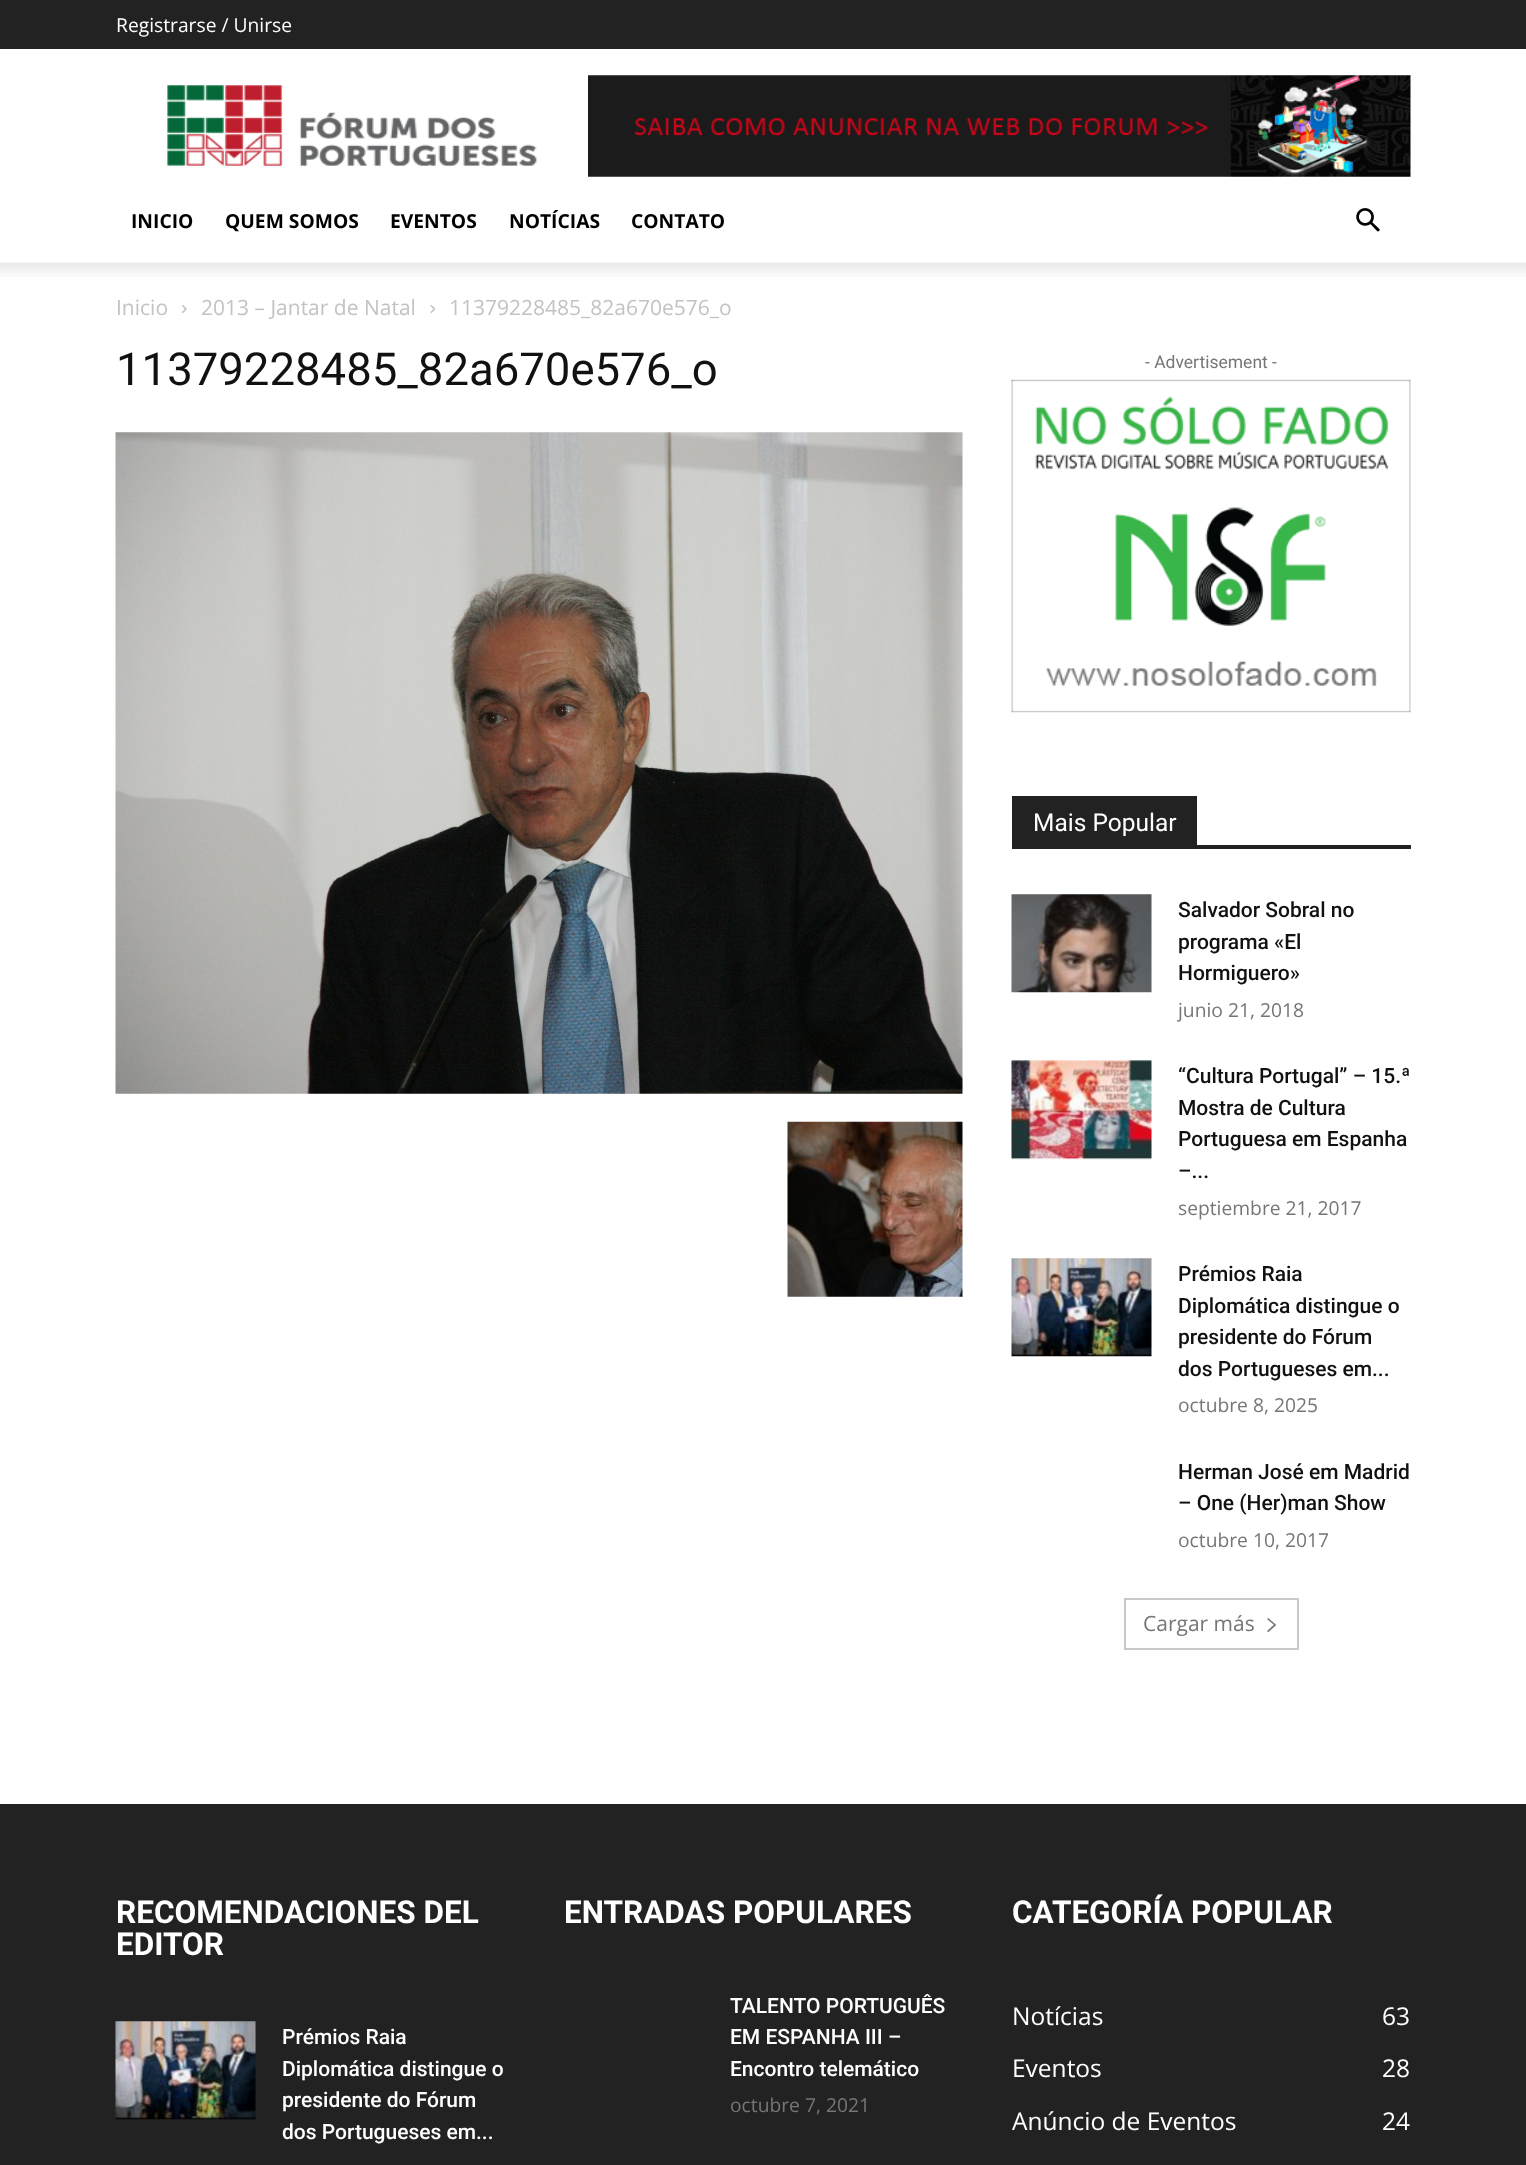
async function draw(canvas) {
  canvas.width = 1526
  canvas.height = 2165
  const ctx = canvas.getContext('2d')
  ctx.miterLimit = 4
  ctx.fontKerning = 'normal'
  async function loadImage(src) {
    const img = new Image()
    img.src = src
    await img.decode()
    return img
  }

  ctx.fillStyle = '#fff'
  ctx.fillRect(0, 0, 1526, 2165)
  ctx.fillStyle = '#222'
  ctx.fillRect(0, 0, 1526, 49)
  ctx.font = '19.25px Open Sans'
  ctx.fillStyle = '#fff'
  ctx.fillText('Registrarse / Unirse', 116, 32)
  ctx.drawImage(await loadImage('image0.png'), 167, 85, 370, 81)
  ctx.drawImage(await loadImage('image1.png'), 588, 75, 823, 102)
  ctx.font = 'bold 19.25px Open Sans'
  ctx.fillStyle = '#000'
  ctx.fillText('INICIO', 131, 228)
  ctx.fillText('QUEM SOMOS', 225, 228)
  ctx.fillText('EVENTOS', 390, 228)
  ctx.fillText('NOTÍCIAS', 509, 228)
  ctx.fillText('CONTATO', 631, 228)
  ctx.drawImage(await loadImage('image2.png'), 1356, 208, 24, 24)
  ctx.drawImage(await loadImage('image3.png'), 0, 262, 1526, 15)
  ctx.font = '21px Open Sans'
  ctx.fillStyle = '#c3c3c3'
  ctx.fillText('Inicio', 116, 315)
  ctx.drawImage(await loadImage('image4.png'), 182, 305, 5, 8)
  ctx.fillText('2013 – Jantar de Natal', 201, 315)
  ctx.drawImage(await loadImage('image5.png'), 430, 305, 6, 8)
  ctx.fillText('11379228485_82a670e576_o', 449, 315)
  ctx.font = '45.5px Roboto'
  ctx.fillStyle = '#111'
  ctx.fillText('11379228485_82a670e576_o', 116, 385)
  ctx.drawImage(await loadImage('image6.png'), 115, 432, 848, 662)
  ctx.drawImage(await loadImage('image7.png'), 787, 1121, 176, 176)
  ctx.font = '17.5px Roboto'
  ctx.fillStyle = '#767676'
  ctx.fillText('- Advertisement -', 1145, 368)
  ctx.drawImage(await loadImage('image8.png'), 1011, 379, 400, 334)
  ctx.fillStyle = '#222'
  ctx.fillRect(1012, 845, 399, 4)
  ctx.fillRect(1012, 796, 185, 49)
  ctx.font = '24.5px Roboto'
  ctx.fillStyle = '#fff'
  ctx.fillText('Mais Popular', 1033, 831)
  ctx.drawImage(await loadImage('image9.png'), 1011, 894, 141, 99)
  ctx.font = '500 21px Roboto'
  ctx.fillStyle = '#111'
  ctx.fillText('Salvador Sobral no', 1178, 917)
  ctx.fillText('programa «El', 1178, 949)
  ctx.fillText('Hormiguero»', 1178, 980)
  ctx.font = '19.25px Open Sans'
  ctx.fillStyle = '#767676'
  ctx.fillText('junio 21, 2018', 1178, 1017)
  ctx.drawImage(await loadImage('image10.png'), 1011, 1060, 141, 100)
  ctx.font = '500 21px Roboto'
  ctx.fillStyle = '#111'
  ctx.fillText('“Cultura Portugal” – 15.ª', 1178, 1083)
  ctx.fillText('Mostra de Cultura', 1178, 1115)
  ctx.fillText('Portuguesa em Espanha', 1178, 1146)
  ctx.fillText('–...', 1178, 1178)
  ctx.font = '19.25px Open Sans'
  ctx.fillStyle = '#767676'
  ctx.fillText('septiembre 21, 2017', 1178, 1215)
  ctx.drawImage(await loadImage('image11.png'), 1011, 1258, 141, 99)
  ctx.font = '500 21px Roboto'
  ctx.fillStyle = '#111'
  ctx.fillText('Prémios Raia', 1178, 1281)
  ctx.fillText('Diplomática distingue o', 1178, 1313)
  ctx.fillText('presidente do Fórum', 1178, 1344)
  ctx.fillText('dos Portugueses em...', 1178, 1376)
  ctx.font = '19.25px Open Sans'
  ctx.fillStyle = '#767676'
  ctx.fillText('octubre 8, 2025', 1178, 1412)
  ctx.font = '500 21px Roboto'
  ctx.fillStyle = '#111'
  ctx.fillText('Herman José em Madrid', 1178, 1479)
  ctx.fillText('– One (Her)man Show', 1178, 1510)
  ctx.font = '19.25px Open Sans'
  ctx.fillStyle = '#767676'
  ctx.fillText('octubre 10, 2017', 1178, 1547)
  ctx.strokeStyle = '#c9c9c9'
  ctx.lineWidth = 2
  ctx.strokeRect(1125, 1599, 173, 50)
  ctx.font = '21px Open Sans'
  ctx.fillText('Cargar más', 1143, 1631)
  ctx.drawImage(await loadImage('image12.png'), 1267, 1618, 9, 14)
  ctx.fillStyle = '#222'
  ctx.fillRect(0, 1804, 1526, 361)
  ctx.font = 'bold 31.5px Roboto'
  ctx.fillStyle = '#fff'
  ctx.fillText('RECOMENDACIONES DEL', 116, 1923)
  ctx.fillText('EDITOR', 116, 1955)
  ctx.drawImage(await loadImage('image13.png'), 115, 2021, 141, 99)
  ctx.font = '500 21px Roboto'
  ctx.fillText('Prémios Raia', 282, 2044)
  ctx.fillText('Diplomática distingue o', 282, 2076)
  ctx.fillText('presidente do Fórum', 282, 2107)
  ctx.fillText('dos Portugueses em...', 282, 2139)
  ctx.font = 'bold 31.5px Roboto'
  ctx.fillText('ENTRADAS POPULARES', 564, 1923)
  ctx.font = '500 21px Roboto'
  ctx.fillText('TALENTO PORTUGUÊS', 730, 2013)
  ctx.fillText('EM ESPANHA III –', 730, 2044)
  ctx.fillText('Encontro telemático', 730, 2076)
  ctx.font = '19.25px Open Sans'
  ctx.fillStyle = '#767676'
  ctx.fillText('octubre 7, 2021', 730, 2112)
  ctx.font = 'bold 31.5px Roboto'
  ctx.fillStyle = '#fff'
  ctx.fillText('CATEGORÍA POPULAR', 1012, 1923)
  ctx.font = '24.5px Open Sans'
  ctx.fillText('Notícias', 1012, 2025)
  ctx.fillText('63', 1382, 2025)
  ctx.fillText('Eventos', 1012, 2077)
  ctx.fillText('28', 1382, 2077)
  ctx.fillText('Anúncio de Eventos', 1012, 2130)
  ctx.fillText('24', 1382, 2130)
}

draw(document.querySelector('canvas'))
